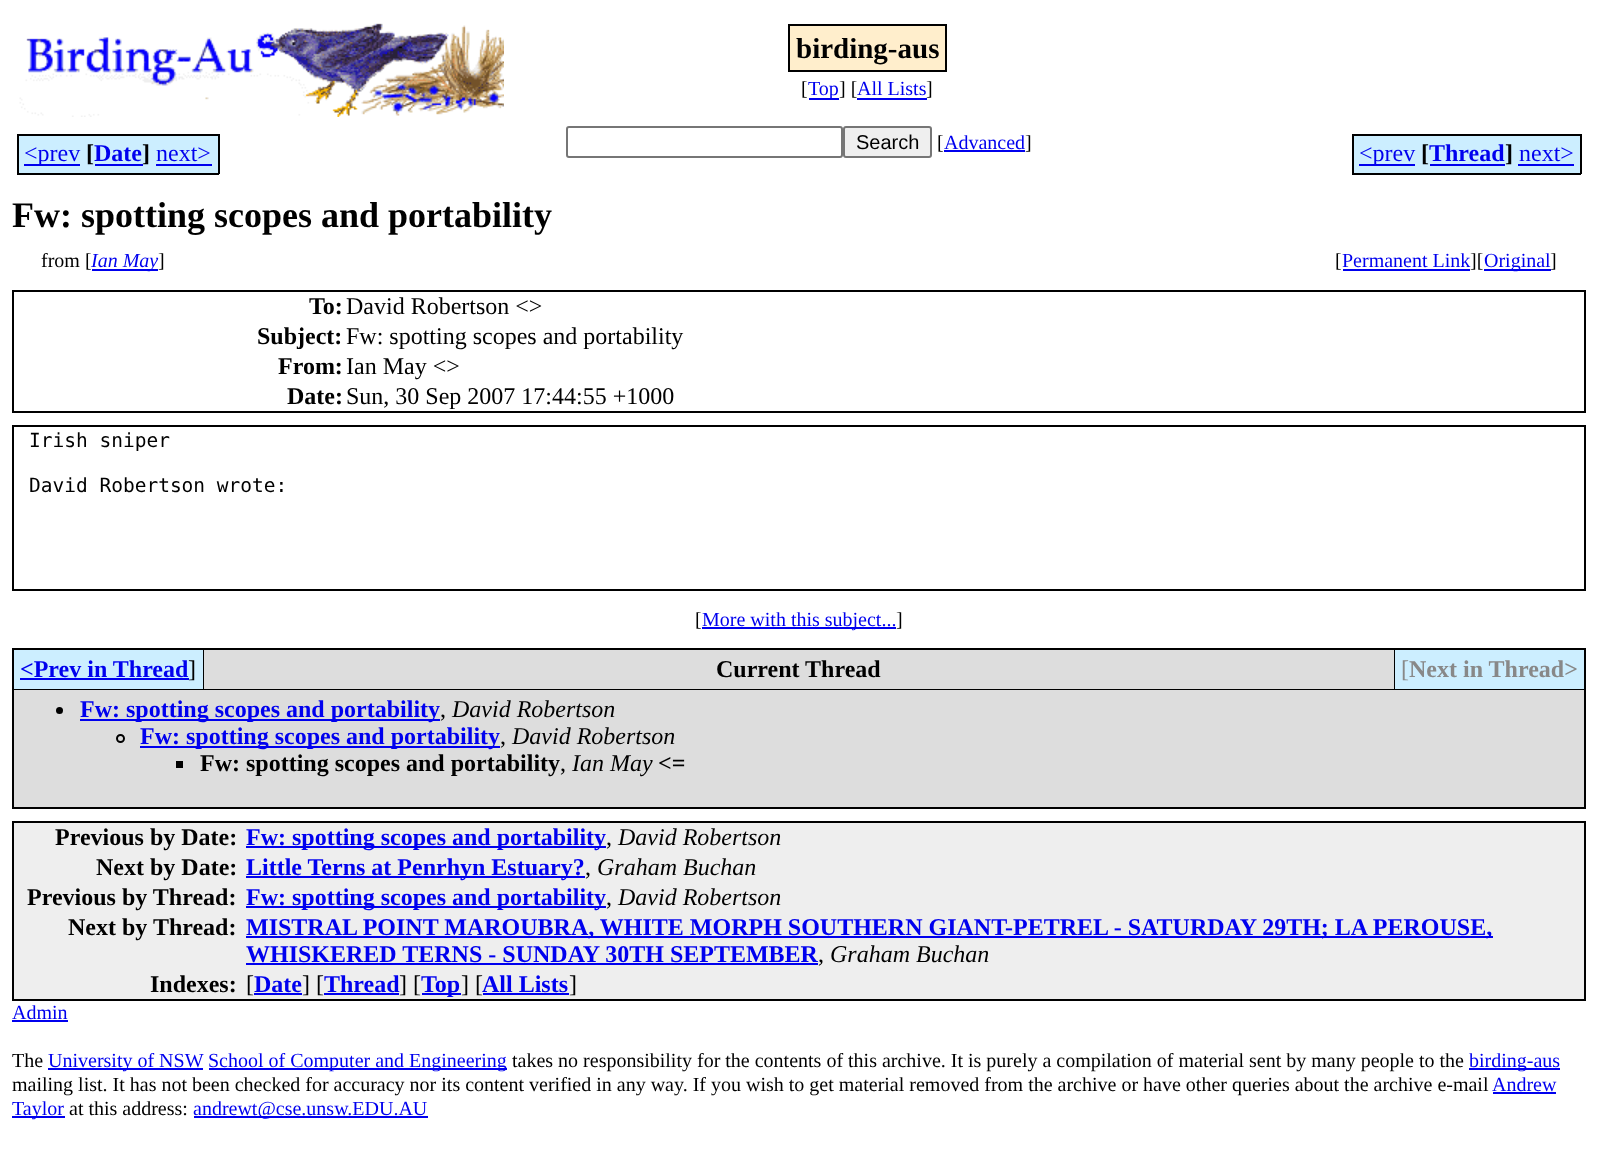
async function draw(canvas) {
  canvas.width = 1597
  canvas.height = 1169
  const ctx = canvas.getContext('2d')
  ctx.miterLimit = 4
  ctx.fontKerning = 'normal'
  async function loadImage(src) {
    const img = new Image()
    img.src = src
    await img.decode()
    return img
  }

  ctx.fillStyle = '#fff'
  ctx.fillRect(0, 0, 1597, 1169)
  ctx.drawImage(await loadImage('image0.png'), 19, 23, 485, 94)
  ctx.fillStyle = '#fec'
  ctx.beginPath()
  ctx.rect(789, 25, 157, 46)
  ctx.fill()
  ctx.strokeStyle = '#000'
  ctx.lineWidth = 2
  ctx.stroke()
  ctx.font = 'bold 29px Liberation Serif'
  ctx.fillStyle = '#000'
  ctx.fillText('birding-aus', 796, 58)
  ctx.font = '20px Liberation Serif'
  ctx.fillText('[', 801, 95)
  ctx.fillStyle = '#00e'
  ctx.fillRect(809, 98, 30, 2)
  ctx.fillText('Top', 808, 95)
  ctx.fillStyle = '#000'
  ctx.fillText('] [', 839, 95)
  ctx.fillStyle = '#00e'
  ctx.fillText('All Lists', 857, 95)
  ctx.fillStyle = '#000'
  ctx.fillText(']', 926, 95)
  ctx.fillStyle = '#00e'
  ctx.fillRect(857, 98, 70, 2)
  ctx.fillStyle = '#cef'
  ctx.fillRect(19, 136, 61, 37)
  ctx.fillStyle = '#00e'
  ctx.fillRect(24, 164, 56, 2)
  ctx.fillStyle = '#cef'
  ctx.fillRect(80, 134, 6, 40)
  ctx.font = '24px Liberation Serif'
  ctx.fillStyle = '#00e'
  ctx.fillText('<prev', 24, 161)
  ctx.fillStyle = '#000'
  ctx.fillRect(17, 134, 63, 2)
  ctx.fillRect(17, 173, 63, 2)
  ctx.fillRect(17, 134, 2, 40)
  ctx.fillRect(80, 173, 63, 2)
  ctx.fillStyle = '#cef'
  ctx.fillRect(86, 136, 57, 37)
  ctx.font = 'bold 24px Liberation Serif'
  ctx.fillStyle = '#000'
  ctx.fillText('[', 86, 161)
  ctx.fillStyle = '#00e'
  ctx.fillText('Date', 94, 161)
  ctx.fillStyle = '#000'
  ctx.fillRect(80, 134, 63, 2)
  ctx.fillStyle = '#cef'
  ctx.fillRect(143, 134, 13, 40)
  ctx.fillStyle = '#000'
  ctx.fillRect(143, 134, 76, 2)
  ctx.fillText(']', 142, 161)
  ctx.fillRect(143, 173, 13, 2)
  ctx.fillStyle = '#00e'
  ctx.fillRect(95, 164, 48, 2)
  ctx.fillStyle = '#cef'
  ctx.fillRect(156, 136, 62, 37)
  ctx.font = '24px Liberation Serif'
  ctx.fillStyle = '#00e'
  ctx.fillText('next>', 156, 161)
  ctx.fillStyle = '#000'
  ctx.fillRect(218, 134, 2, 40)
  ctx.fillRect(156, 173, 63, 2)
  ctx.fillStyle = '#00e'
  ctx.fillRect(156, 164, 56, 2)
  ctx.beginPath()
  ctx.roundRect(567, 127, 275, 30, 2)
  ctx.strokeStyle = '#767676'
  ctx.stroke()
  ctx.fillStyle = '#efefef'
  ctx.beginPath()
  ctx.roundRect(844, 127, 87, 30, 2)
  ctx.fill()
  ctx.stroke()
  ctx.font = '20px Liberation Sans'
  ctx.fillStyle = '#000'
  ctx.fillText('Search', 856, 149)
  ctx.font = '20px Liberation Serif'
  ctx.fillText('[', 937, 149)
  ctx.fillStyle = '#00e'
  ctx.fillText('Advanced', 944, 149)
  ctx.fillStyle = '#000'
  ctx.fillText(']', 1025, 149)
  ctx.fillStyle = '#00e'
  ctx.fillRect(944, 150, 81, 2)
  ctx.fillStyle = '#cef'
  ctx.fillRect(1354, 136, 61, 37)
  ctx.fillStyle = '#00e'
  ctx.fillRect(1359, 164, 56, 2)
  ctx.fillStyle = '#cef'
  ctx.fillRect(1415, 134, 6, 40)
  ctx.font = '24px Liberation Serif'
  ctx.fillStyle = '#00e'
  ctx.fillText('<prev', 1359, 161)
  ctx.fillStyle = '#000'
  ctx.fillRect(1352, 134, 63, 2)
  ctx.fillRect(1352, 173, 63, 2)
  ctx.fillRect(1352, 134, 2, 40)
  ctx.fillRect(1415, 173, 90, 2)
  ctx.fillStyle = '#cef'
  ctx.fillRect(1421, 136, 84, 37)
  ctx.font = 'bold 24px Liberation Serif'
  ctx.fillStyle = '#000'
  ctx.fillText('[', 1421, 161)
  ctx.fillStyle = '#00e'
  ctx.fillText('Thread', 1429, 161)
  ctx.fillStyle = '#000'
  ctx.fillRect(1415, 134, 90, 2)
  ctx.fillStyle = '#cef'
  ctx.fillRect(1505, 134, 13, 40)
  ctx.fillStyle = '#000'
  ctx.fillRect(1505, 134, 76, 2)
  ctx.fillText(']', 1505, 161)
  ctx.fillRect(1505, 173, 13, 2)
  ctx.fillStyle = '#00e'
  ctx.fillRect(1430, 164, 75, 2)
  ctx.fillStyle = '#cef'
  ctx.fillRect(1518, 136, 62, 37)
  ctx.font = '24px Liberation Serif'
  ctx.fillStyle = '#00e'
  ctx.fillText('next>', 1519, 161)
  ctx.fillStyle = '#000'
  ctx.fillRect(1580, 134, 2, 40)
  ctx.fillRect(1518, 173, 63, 2)
  ctx.fillStyle = '#00e'
  ctx.fillRect(1518, 164, 56, 2)
  ctx.font = 'bold 36px Liberation Serif'
  ctx.fillStyle = '#000'
  ctx.fillText('Fw: spotting scopes and portability', 12, 227)
  ctx.font = '20px Liberation Serif'
  ctx.fillText('from [', 41, 267)
  ctx.fillStyle = '#00e'
  ctx.fillRect(92, 269, 66, 2)
  ctx.font = 'italic 20px Liberation Serif'
  ctx.fillText('Ian May', 91, 267)
  ctx.font = '20px Liberation Serif'
  ctx.fillStyle = '#000'
  ctx.fillText(']', 158, 267)
  ctx.fillText('[', 1335, 267)
  ctx.fillStyle = '#00e'
  ctx.fillRect(1343, 269, 127, 2)
  ctx.fillText('Permanent Link', 1342, 267)
  ctx.fillStyle = '#000'
  ctx.fillText('][', 1470, 267)
  ctx.fillStyle = '#00e'
  ctx.fillRect(1484, 269, 67, 2)
  ctx.fillText('Original', 1484, 267)
  ctx.fillStyle = '#000'
  ctx.fillText(']', 1550, 267)
  ctx.strokeStyle = '#000'
  ctx.strokeRect(13, 291, 1572, 121)
  ctx.font = 'bold 24px Liberation Serif'
  ctx.fillText('To:', 309, 314)
  ctx.font = '24px Liberation Serif'
  ctx.fillText('David Robertson <>', 346, 314)
  ctx.font = 'bold 24px Liberation Serif'
  ctx.fillText('Subject:', 257, 344)
  ctx.font = '24px Liberation Serif'
  ctx.fillText('Fw: spotting scopes and portability', 346, 344)
  ctx.font = 'bold 24px Liberation Serif'
  ctx.fillText('From:', 278, 374)
  ctx.font = '24px Liberation Serif'
  ctx.fillText('Ian May <>', 346, 374)
  ctx.font = 'bold 24px Liberation Serif'
  ctx.fillText('Date:', 287, 404)
  ctx.font = '24px Liberation Serif'
  ctx.fillText('Sun, 30 Sep 2007 17:44:55 +1000', 346, 404)
  ctx.strokeRect(13, 426, 1572, 164)
  ctx.font = '19.5px DejaVu Sans Mono'
  ctx.fillText('Irish sniper', 29, 447)
  ctx.fillText('David Robertson wrote:', 29, 492)
  ctx.font = '20px Liberation Serif'
  ctx.fillText('[', 695, 626)
  ctx.fillStyle = '#00e'
  ctx.fillRect(702, 627, 194, 2)
  ctx.fillText('More with this subject...', 702, 626)
  ctx.fillStyle = '#000'
  ctx.fillText(']', 896, 626)
  ctx.fillRect(12, 648, 1574, 161)
  ctx.fillStyle = '#cef'
  ctx.fillRect(14, 650, 189, 39)
  ctx.font = 'bold 24px Liberation Serif'
  ctx.fillStyle = '#00e'
  ctx.fillText('<Prev in Thread', 20, 677)
  ctx.fillRect(20, 678, 169, 2)
  ctx.font = '24px Liberation Serif'
  ctx.fillStyle = '#000'
  ctx.fillText(']', 188, 677)
  ctx.fillStyle = '#ddd'
  ctx.fillRect(204, 650, 1190, 39)
  ctx.font = 'bold 24px Liberation Serif'
  ctx.fillStyle = '#000'
  ctx.fillText('Current Thread', 716, 677)
  ctx.fillStyle = '#cef'
  ctx.fillRect(1395, 650, 189, 39)
  ctx.font = '24px Liberation Serif'
  ctx.fillStyle = '#888'
  ctx.fillText('[', 1401, 677)
  ctx.font = 'bold 24px Liberation Serif'
  ctx.fillText('Next in Thread>', 1409, 677)
  ctx.fillStyle = '#ddd'
  ctx.fillRect(14, 690, 1570, 117)
  ctx.fillStyle = '#000'
  ctx.beginPath()
  ctx.arc(59.5, 710.5, 3.5, 0, 2 * Math.PI)
  ctx.fill()
  ctx.fillStyle = '#00e'
  ctx.fillRect(80, 719, 360, 2)
  ctx.fillText('Fw: spotting scopes and portability', 80, 717)
  ctx.font = 'italic 24px Liberation Serif'
  ctx.fillStyle = '#000'
  ctx.fillText('David Robertson', 452, 717)
  ctx.font = '24px Liberation Serif'
  ctx.fillText(',', 440, 717)
  ctx.beginPath()
  ctx.arc(120.5, 738.5, 3.5, 0, 2 * Math.PI)
  ctx.stroke()
  ctx.fillStyle = '#00e'
  ctx.fillRect(140, 746, 360, 2)
  ctx.font = 'bold 24px Liberation Serif'
  ctx.fillText('Fw: spotting scopes and portability', 140, 744)
  ctx.font = 'italic 24px Liberation Serif'
  ctx.fillStyle = '#000'
  ctx.fillText('David Robertson', 512, 744)
  ctx.font = '24px Liberation Serif'
  ctx.fillText(',', 500, 744)
  ctx.fillRect(176, 761, 7, 7)
  ctx.font = 'bold 24px Liberation Serif'
  ctx.fillText('Fw: spotting scopes and portability', 200, 771)
  ctx.font = 'italic 24px Liberation Serif'
  ctx.fillText('Ian May', 572, 771)
  ctx.font = 'bold 24px Liberation Serif'
  ctx.fillText('<=', 658, 771)
  ctx.font = '24px Liberation Serif'
  ctx.fillText(',', 560, 771)
  ctx.fillStyle = '#eee'
  ctx.beginPath()
  ctx.rect(13, 822, 1572, 178)
  ctx.fill()
  ctx.stroke()
  ctx.font = 'bold 24px Liberation Serif'
  ctx.fillStyle = '#000'
  ctx.fillText('Previous by Date:', 55, 845)
  ctx.fillStyle = '#00e'
  ctx.fillRect(246, 846, 360, 2)
  ctx.fillText('Fw: spotting scopes and portability', 246, 845)
  ctx.font = '24px Liberation Serif'
  ctx.fillStyle = '#000'
  ctx.fillText(',', 606, 845)
  ctx.font = 'italic 24px Liberation Serif'
  ctx.fillText('David Robertson', 618, 845)
  ctx.font = 'bold 24px Liberation Serif'
  ctx.fillText('Next by Date:', 96, 875)
  ctx.fillStyle = '#00e'
  ctx.fillRect(246, 876, 339, 2)
  ctx.fillText('Little Terns at Penrhyn Estuary?', 246, 875)
  ctx.font = '24px Liberation Serif'
  ctx.fillStyle = '#000'
  ctx.fillText(',', 585, 875)
  ctx.font = 'italic 24px Liberation Serif'
  ctx.fillText('Graham Buchan', 597, 875)
  ctx.font = 'bold 24px Liberation Serif'
  ctx.fillText('Previous by Thread:', 27, 905)
  ctx.fillStyle = '#00e'
  ctx.fillRect(246, 906, 360, 2)
  ctx.fillText('Fw: spotting scopes and portability', 246, 905)
  ctx.font = '24px Liberation Serif'
  ctx.fillStyle = '#000'
  ctx.fillText(',', 606, 905)
  ctx.font = 'italic 24px Liberation Serif'
  ctx.fillText('David Robertson', 618, 905)
  ctx.font = 'bold 24px Liberation Serif'
  ctx.fillText('Next by Thread:', 68, 935)
  ctx.fillStyle = '#00e'
  ctx.fillRect(246, 936, 1247, 2)
  ctx.fillText('MISTRAL POINT MAROUBRA, WHITE MORPH SOUTHERN GIANT-PETREL - SATURDAY 29TH; LA PEROUSE,', 246, 935)
  ctx.fillText('WHISKERED TERNS - SUNDAY 30TH SEPTEMBER', 246, 962)
  ctx.fillRect(246, 963, 572, 2)
  ctx.font = '24px Liberation Serif'
  ctx.fillStyle = '#000'
  ctx.fillText(',', 818, 962)
  ctx.font = 'italic 24px Liberation Serif'
  ctx.fillText('Graham Buchan', 830, 962)
  ctx.font = 'bold 24px Liberation Serif'
  ctx.fillText('Indexes:', 150, 992)
  ctx.font = '24px Liberation Serif'
  ctx.fillText('[', 246, 992)
  ctx.font = 'bold 24px Liberation Serif'
  ctx.fillStyle = '#00e'
  ctx.fillText('Date', 254, 992)
  ctx.fillRect(254, 993, 48, 2)
  ctx.font = '24px Liberation Serif'
  ctx.fillStyle = '#000'
  ctx.fillText('] [', 302, 992)
  ctx.font = 'bold 24px Liberation Serif'
  ctx.fillStyle = '#00e'
  ctx.fillText('Thread', 324, 992)
  ctx.fillRect(324, 993, 75, 2)
  ctx.font = '24px Liberation Serif'
  ctx.fillStyle = '#000'
  ctx.fillText('] [', 399, 992)
  ctx.fillStyle = '#00e'
  ctx.fillRect(422, 993, 39, 2)
  ctx.font = 'bold 24px Liberation Serif'
  ctx.fillText('Top', 421, 992)
  ctx.font = '24px Liberation Serif'
  ctx.fillStyle = '#000'
  ctx.fillText('] [', 461, 992)
  ctx.font = 'bold 24px Liberation Serif'
  ctx.fillStyle = '#00e'
  ctx.fillText('All Lists', 482, 992)
  ctx.fillRect(483, 993, 86, 2)
  ctx.font = '24px Liberation Serif'
  ctx.fillStyle = '#000'
  ctx.fillText(']', 569, 992)
  ctx.font = '20px Liberation Serif'
  ctx.fillStyle = '#00e'
  ctx.fillText('Admin', 12, 1019)
  ctx.fillRect(12, 1020, 56, 2)
  ctx.fillStyle = '#000'
  ctx.fillText('The', 12, 1067)
  ctx.fillStyle = '#00e'
  ctx.fillRect(48, 1068, 155, 2)
  ctx.fillText('University of NSW', 48, 1067)
  ctx.fillRect(209, 1068, 298, 2)
  ctx.fillText('School of Computer and Engineering', 208, 1067)
  ctx.fillStyle = '#000'
  ctx.fillText('takes no responsibility for the contents of this archive. It is purely a compilation of material sent by many people to the', 512, 1067)
  ctx.fillStyle = '#00e'
  ctx.fillRect(1469, 1068, 91, 2)
  ctx.fillText('birding-aus', 1469, 1067)
  ctx.fillStyle = '#000'
  ctx.fillText('mailing list. It has not been checked for accuracy nor its content verified in any way. If you wish to get material removed from the archive or have other queries about the archive e-mail', 12, 1091)
  ctx.fillStyle = '#00e'
  ctx.fillText('Andrew', 1492, 1091)
  ctx.fillRect(1493, 1092, 63, 2)
  ctx.fillRect(12, 1116, 53, 2)
  ctx.fillText('Taylor', 12, 1115)
  ctx.fillStyle = '#000'
  ctx.fillText('at this address:', 69, 1115)
  ctx.fillStyle = '#00e'
  ctx.fillRect(194, 1116, 234, 2)
  ctx.fillText('andrewt@cse.unsw.EDU.AU', 193, 1115)
}

draw(document.querySelector('canvas'))
